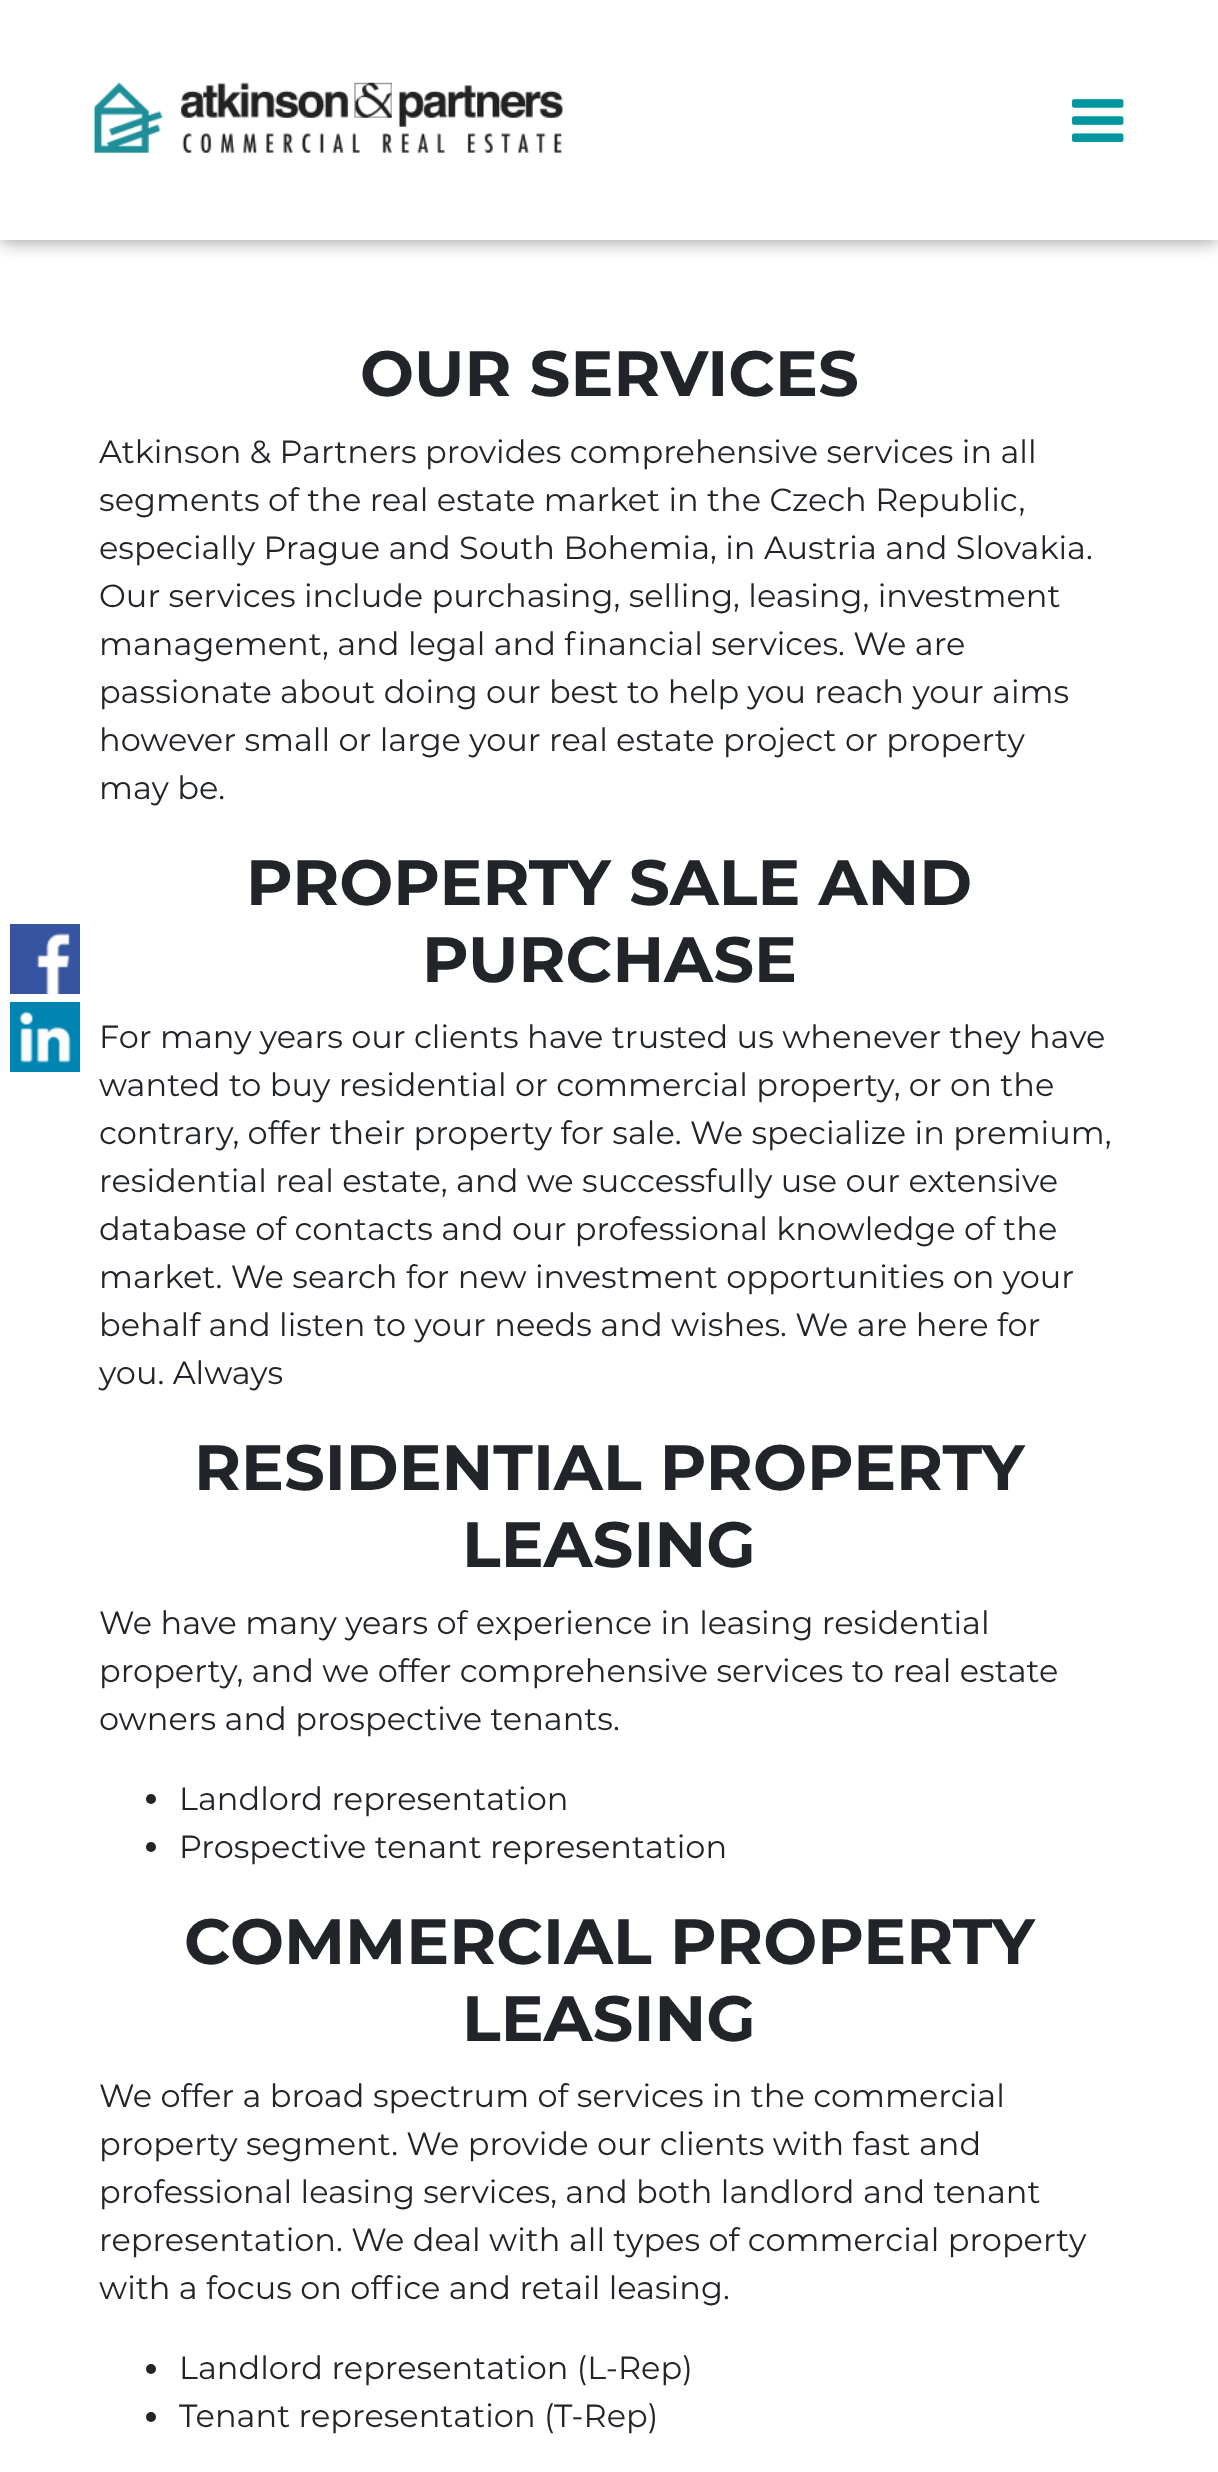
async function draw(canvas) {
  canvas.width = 1218
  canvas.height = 2472
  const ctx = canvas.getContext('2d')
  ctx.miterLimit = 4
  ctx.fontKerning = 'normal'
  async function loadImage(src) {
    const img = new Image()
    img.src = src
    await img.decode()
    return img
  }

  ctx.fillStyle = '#fff'
  ctx.fillRect(0, 0, 1218, 2472)
  ctx.save()
  ctx.beginPath()
  ctx.rect(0, 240, 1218, 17)
  ctx.clip()
  ctx.fillStyle = '#00000073'
  ctx.filter = 'blur(10px)'
  ctx.beginPath()
  ctx.rect(0, 0, 1218, 240)
  ctx.fill()
  ctx.filter = 'none'
  ctx.restore()
  ctx.drawImage(await loadImage('image0.png'), 94, 82, 469, 71)
  ctx.drawImage(await loadImage('image1.png'), 1072, 99, 52, 43)
  ctx.drawImage(await loadImage('image2.png'), 10, 924, 70, 70)
  ctx.drawImage(await loadImage('image3.png'), 10, 1002, 70, 70)
  ctx.font = 'bold 64px Montserrat'
  ctx.fillStyle = '#212529'
  ctx.fillText('OUR SERVICES', 360, 396)
  ctx.font = '32px Montserrat'
  ctx.fillText('Atkinson & Partners provides comprehensive services in all', 99, 463)
  ctx.fillText('segments of the real estate market in the Czech Republic,', 99, 511)
  ctx.fillText('especially Prague and South Bohemia, in Austria and Slovakia.', 99, 559)
  ctx.fillText('Our services include purchasing, selling, leasing, investment', 99, 607)
  ctx.fillText('management, and legal and financial services. We are', 99, 655)
  ctx.fillText('passionate about doing our best to help you reach your aims', 99, 703)
  ctx.fillText('however small or large your real estate project or property', 99, 751)
  ctx.fillText('may be.', 99, 799)
  ctx.font = 'bold 64px Montserrat'
  ctx.fillText('PROPERTY SALE AND', 246, 905)
  ctx.fillText('PURCHASE', 422, 982)
  ctx.font = '32px Montserrat'
  ctx.fillText('For many years our clients have trusted us whenever they have', 99, 1048)
  ctx.fillText('wanted to buy residential or commercial property, or on the', 99, 1096)
  ctx.fillText('contrary, offer their property for sale. We specialize in premium,', 99, 1144)
  ctx.fillText('residential real estate, and we successfully use our extensive', 99, 1192)
  ctx.fillText('database of contacts and our professional knowledge of the', 99, 1240)
  ctx.fillText('market. We search for new investment opportunities on your', 99, 1288)
  ctx.fillText('behalf and listen to your needs and wishes. We are here for', 99, 1336)
  ctx.fillText('you. Always', 99, 1384)
  ctx.font = 'bold 64px Montserrat'
  ctx.fillText('RESIDENTIAL PROPERTY', 194, 1490)
  ctx.fillText('LEASING', 462, 1567)
  ctx.font = '32px Montserrat'
  ctx.fillText('We have many years of experience in leasing residential', 99, 1634)
  ctx.fillText('property, and we offer comprehensive services to real estate', 99, 1682)
  ctx.fillText('owners and prospective tenants.', 99, 1730)
  ctx.beginPath()
  ctx.arc(151, 1799, 5, 0, 2 * Math.PI)
  ctx.fill()
  ctx.fillText('Landlord representation', 179, 1810)
  ctx.beginPath()
  ctx.arc(151, 1847, 5, 0, 2 * Math.PI)
  ctx.fill()
  ctx.fillText('Prospective tenant representation', 179, 1858)
  ctx.font = 'bold 64px Montserrat'
  ctx.fillText('COMMERCIAL PROPERTY', 184, 1964)
  ctx.fillText('LEASING', 462, 2041)
  ctx.font = '32px Montserrat'
  ctx.fillText('We offer a broad spectrum of services in the commercial', 99, 2107)
  ctx.fillText('property segment. We provide our clients with fast and', 99, 2155)
  ctx.fillText('professional leasing services, and both landlord and tenant', 99, 2203)
  ctx.fillText('representation. We deal with all types of commercial property', 99, 2251)
  ctx.fillText('with a focus on office and retail leasing.', 99, 2299)
  ctx.beginPath()
  ctx.arc(151, 2369, 5, 0, 2 * Math.PI)
  ctx.fill()
  ctx.fillText('Landlord representation (L-Rep)', 179, 2379)
  ctx.beginPath()
  ctx.arc(151, 2417, 5, 0, 2 * Math.PI)
  ctx.fill()
  ctx.fillText('Tenant representation (T-Rep)', 179, 2427)
}

draw(document.querySelector('canvas'))
